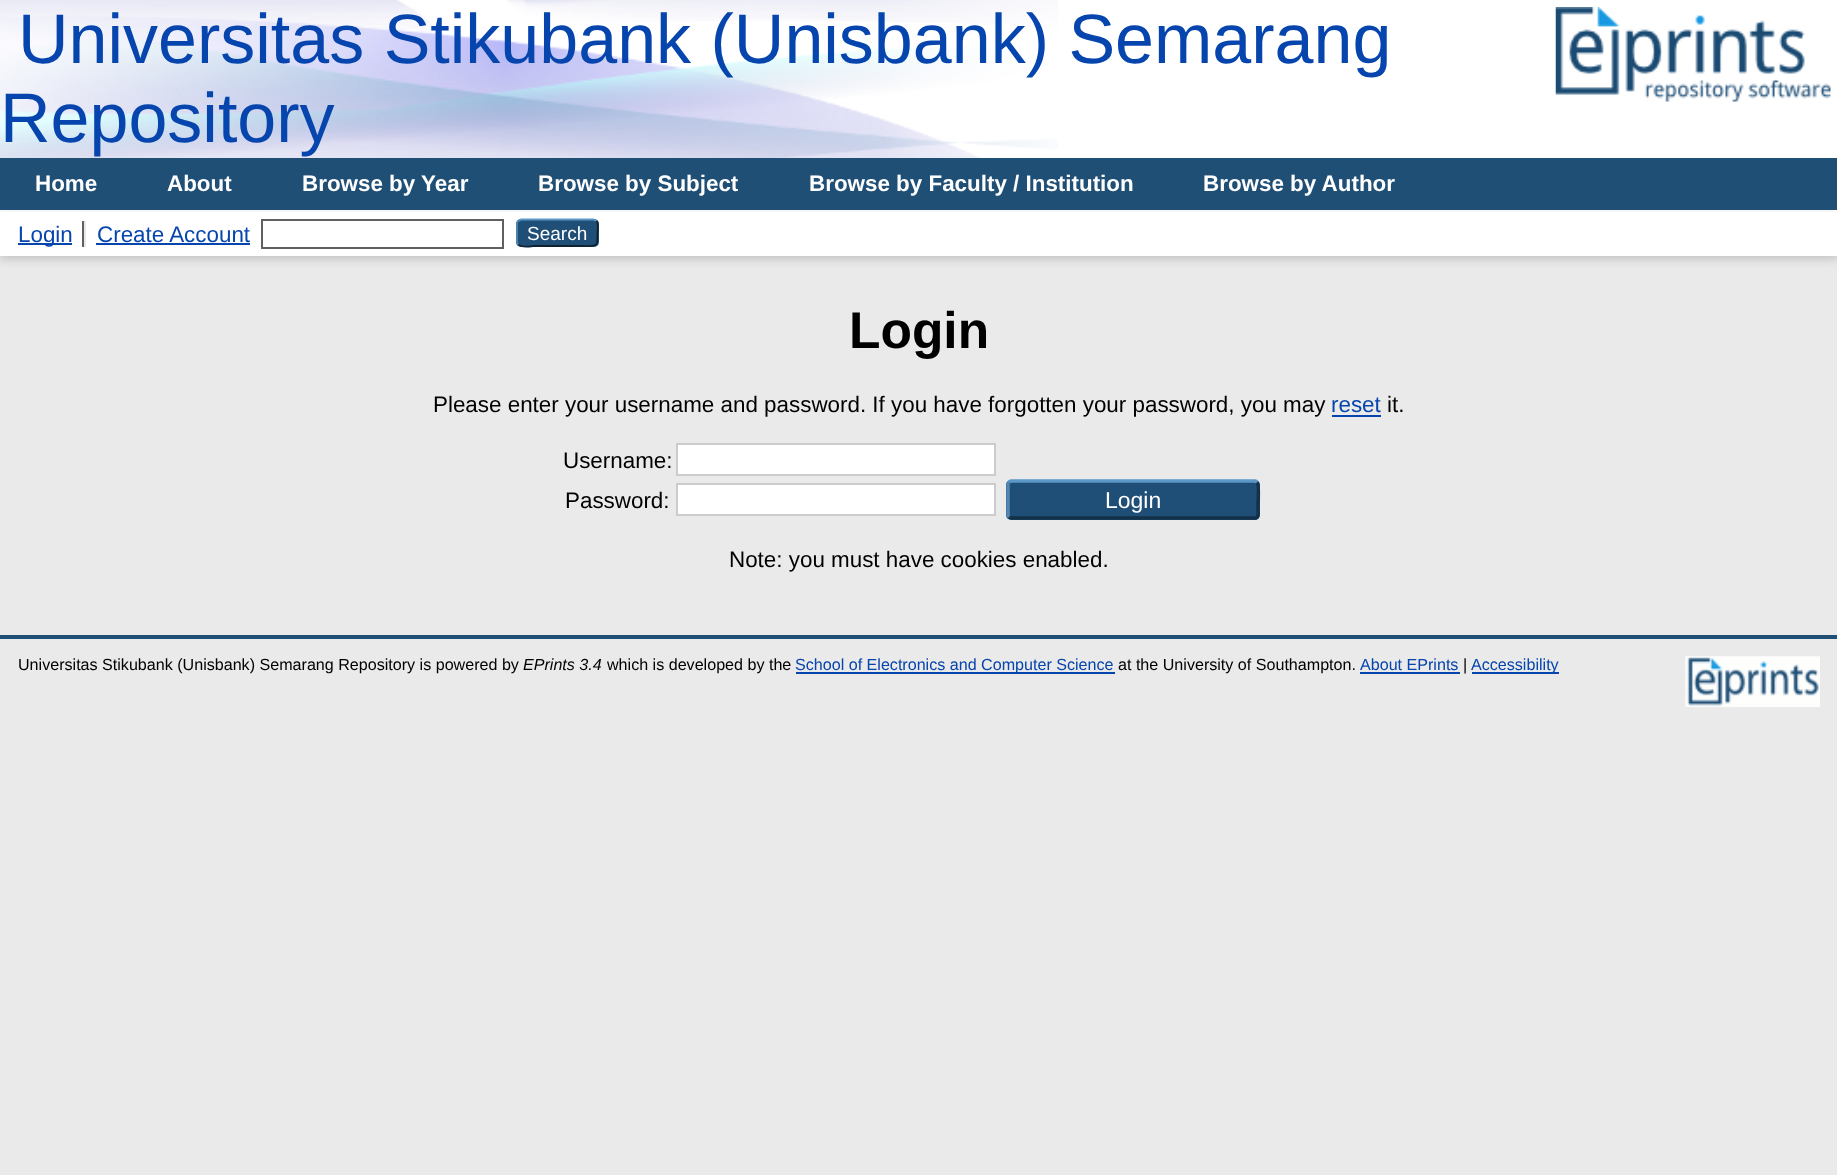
async function draw(canvas) {
  canvas.width = 1837
  canvas.height = 1175
  const ctx = canvas.getContext('2d')
  ctx.miterLimit = 4
  ctx.fontKerning = 'normal'
  async function loadImage(src) {
    const img = new Image()
    img.src = src
    await img.decode()
    return img
  }

  ctx.fillStyle = '#eaeaea'
  ctx.fillRect(0, 0, 1837, 1175)
  ctx.fillStyle = '#fff'
  ctx.fillRect(0, 0, 1837, 158)
  ctx.drawImage(await loadImage('image0.png'), 0, 0, 1058, 158)
  ctx.font = '70px Liberation Sans'
  ctx.fillStyle = '#0645ad'
  ctx.fillText('Universitas Stikubank (Unisbank) Semarang', 18, 63)
  ctx.fillText('Repository', 0, 142)
  ctx.drawImage(await loadImage('image1.png'), 1555, 7, 276, 95)
  ctx.fillStyle = '#204f76'
  ctx.fillRect(0, 158, 1837, 52)
  ctx.fillStyle = '#fff'
  ctx.fillRect(0, 210, 1837, 2)
  ctx.font = 'bold 22.4px Liberation Sans'
  ctx.fillText('Home', 35, 191)
  ctx.fillText('About', 167, 191)
  ctx.fillText('Browse by Year', 302, 191)
  ctx.fillText('Browse by Subject', 538, 191)
  ctx.fillText('Browse by Faculty / Institution', 809, 191)
  ctx.fillText('Browse by Author', 1203, 191)
  ctx.fillStyle = '#6464644d'
  ctx.filter = 'blur(5px)'
  ctx.beginPath()
  ctx.rect(0, 215, 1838, 44)
  ctx.fill()
  ctx.filter = 'none'
  ctx.fillStyle = '#fff'
  ctx.fillRect(0, 212, 1837, 44)
  ctx.fillStyle = '#0645ad'
  ctx.fillRect(18, 243, 54, 2)
  ctx.font = '22.4px Liberation Sans'
  ctx.fillText('Login', 18, 242)
  ctx.fillStyle = '#606060'
  ctx.fillRect(82, 221, 2, 26)
  ctx.fillStyle = '#0645ad'
  ctx.fillText('Create Account', 97, 242)
  ctx.fillStyle = '#e8e8e8'
  ctx.fillRect(84, 221, 2, 26)
  ctx.fillStyle = '#0645ad'
  ctx.fillRect(96, 243, 154, 2)
  ctx.strokeStyle = '#606060'
  ctx.lineWidth = 2
  ctx.strokeRect(262, 220, 241, 28)
  ctx.fillStyle = '#1f4f76'
  ctx.beginPath()
  ctx.roundRect(516, 219, 83, 28, 5)
  ctx.fill()
  ctx.beginPath()
  ctx.moveTo(518.5, 221)
  ctx.lineTo(521, 219.5)
  ctx.lineTo(593.5, 219.5)
  ctx.lineTo(596.5, 221)
  ctx.strokeStyle = '#5b97c7'
  ctx.lineWidth = 1.8
  ctx.stroke()
  ctx.beginPath()
  ctx.moveTo(596.5, 221)
  ctx.bezierCurveTo(599, 223.5, 597.5, 229.5, 597.5, 233)
  ctx.bezierCurveTo(597.5, 248, 598, 246, 581.5, 246)
  ctx.lineTo(533.5, 246)
  ctx.bezierCurveTo(533, 246, 521.5, 248, 518.5, 244.5)
  ctx.strokeStyle = '#0d2131'
  ctx.stroke()
  ctx.beginPath()
  ctx.moveTo(518.5, 244.5)
  ctx.bezierCurveTo(517.5, 244, 517, 242.5, 517, 241.5)
  ctx.lineTo(517, 224)
  ctx.bezierCurveTo(517, 223, 517.5, 221.5, 518.5, 221)
  ctx.strokeStyle = '#5287b3'
  ctx.stroke()
  ctx.font = '19px Liberation Sans'
  ctx.fillStyle = '#fff'
  ctx.fillText('Search', 527, 240)
  ctx.font = 'bold 51.5px Liberation Sans'
  ctx.fillStyle = '#000'
  ctx.fillText('Login', 849, 348)
  ctx.font = '22.4px Liberation Sans'
  ctx.fillText('Please enter your username and password. If you have forgotten your password, you may', 433, 412)
  ctx.fillStyle = '#0645ad'
  ctx.fillText('reset', 1331, 412)
  ctx.fillRect(1332, 415, 49, 2)
  ctx.fillStyle = '#000'
  ctx.fillText('it.', 1387, 412)
  ctx.fillText('Username:', 563, 468)
  ctx.fillStyle = '#fff'
  ctx.beginPath()
  ctx.rect(677, 444, 318, 31)
  ctx.fill()
  ctx.strokeStyle = '#ccc'
  ctx.lineWidth = 2
  ctx.stroke()
  ctx.fillStyle = '#000'
  ctx.fillText('Password:', 565, 508)
  ctx.fillStyle = '#fff'
  ctx.beginPath()
  ctx.rect(677, 484, 318, 31)
  ctx.fill()
  ctx.stroke()
  ctx.fillStyle = '#1f4f76'
  ctx.beginPath()
  ctx.roundRect(1006, 480, 254, 40, 5)
  ctx.fill()
  ctx.beginPath()
  ctx.moveTo(1009, 482.5)
  ctx.bezierCurveTo(1009.5, 481.5, 1010.5, 481, 1011.5, 481)
  ctx.lineTo(1255, 481)
  ctx.bezierCurveTo(1255.5, 481, 1256.5, 481.5, 1257, 482.5)
  ctx.strokeStyle = '#5b97c7'
  ctx.lineWidth = 3.5
  ctx.stroke()
  ctx.beginPath()
  ctx.moveTo(1257, 482.5)
  ctx.bezierCurveTo(1259.5, 484.5, 1258, 501, 1258, 504.5)
  ctx.lineTo(1258, 509.5)
  ctx.bezierCurveTo(1258, 512, 1259, 517, 1256, 518)
  ctx.lineTo(1011.5, 518)
  ctx.lineTo(1009, 517)
  ctx.strokeStyle = '#13324a'
  ctx.stroke()
  ctx.beginPath()
  ctx.moveTo(1009, 517)
  ctx.bezierCurveTo(1008.5, 516.5, 1008, 515.5, 1008, 514.5)
  ctx.lineTo(1008, 485)
  ctx.bezierCurveTo(1008, 484, 1008.5, 483, 1009, 482.5)
  ctx.strokeStyle = '#5287b3'
  ctx.stroke()
  ctx.font = '23px Liberation Sans'
  ctx.fillStyle = '#fff'
  ctx.fillText('Login', 1105, 508)
  ctx.font = '22.4px Liberation Sans'
  ctx.fillStyle = '#000'
  ctx.fillText('Note: you must have cookies enabled.', 729, 567)
  ctx.fillStyle = '#204f76'
  ctx.fillRect(0, 635, 1837, 4)
  ctx.font = '16.1px Liberation Sans'
  ctx.fillStyle = '#000'
  ctx.fillText('Universitas Stikubank (Unisbank) Semarang Repository is powered by', 18, 670)
  ctx.font = 'italic 16.1px Liberation Sans'
  ctx.fillText('EPrints 3.4', 523, 670)
  ctx.font = '16.1px Liberation Sans'
  ctx.fillText('which is developed by the', 607, 670)
  ctx.fillStyle = '#0645ad'
  ctx.fillRect(796, 672, 319, 2)
  ctx.fillText('School of Electronics and Computer Science', 795, 670)
  ctx.fillStyle = '#000'
  ctx.fillText('at the University of Southampton.', 1118, 670)
  ctx.fillStyle = '#0645ad'
  ctx.fillText('About EPrints', 1360, 670)
  ctx.fillRect(1360, 672, 100, 2)
  ctx.fillStyle = '#000'
  ctx.fillText('|', 1463, 670)
  ctx.fillStyle = '#0645ad'
  ctx.fillRect(1472, 672, 87, 2)
  ctx.fillText('Accessibility', 1471, 670)
  ctx.drawImage(await loadImage('image2.png'), 1685, 656, 135, 51)
}

draw(document.querySelector('canvas'))
